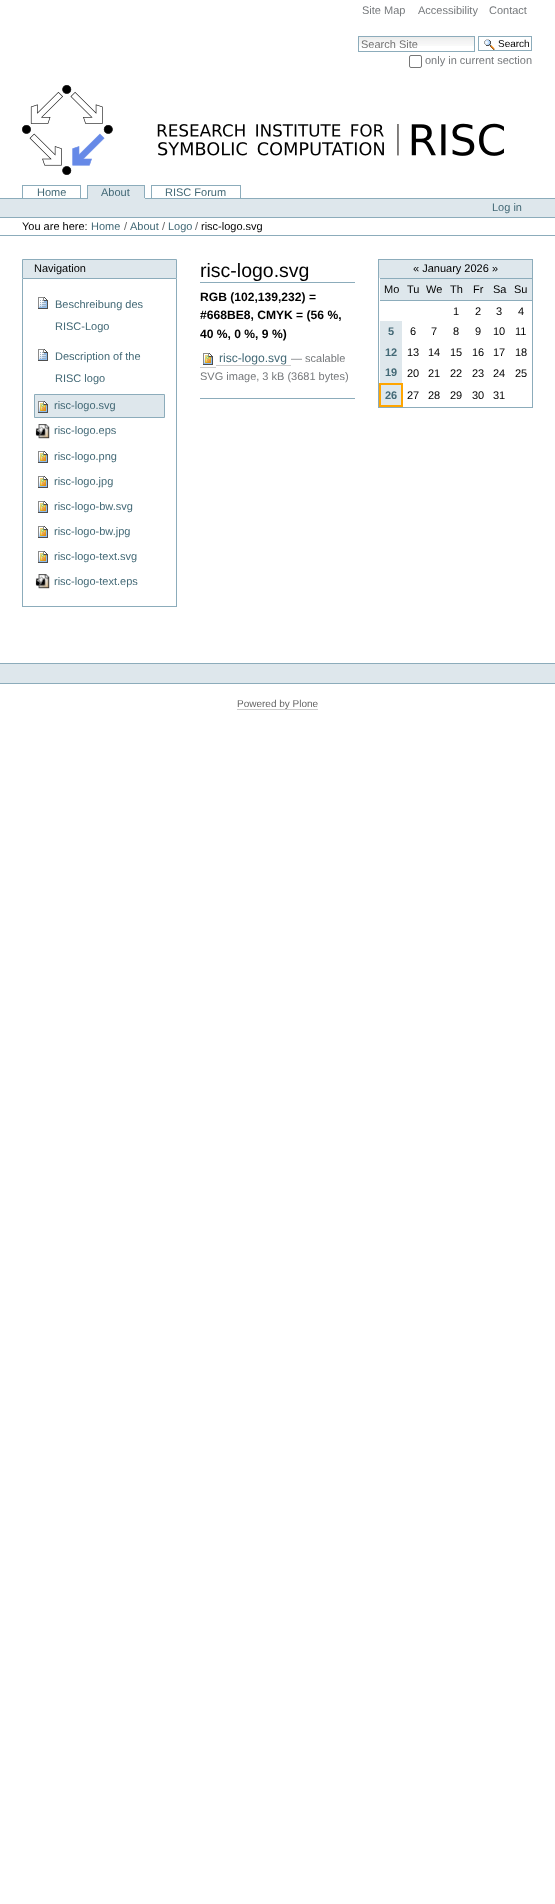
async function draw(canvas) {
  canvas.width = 555
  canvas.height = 1904
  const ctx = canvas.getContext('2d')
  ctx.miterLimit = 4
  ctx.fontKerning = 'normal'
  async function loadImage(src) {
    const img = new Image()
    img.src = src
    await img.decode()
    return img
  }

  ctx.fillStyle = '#fff'
  ctx.fillRect(0, 0, 555, 1904)
  ctx.font = '11px Liberation Sans'
  ctx.fillStyle = '#76797c'
  ctx.fillText('Site Map', 362, 14)
  ctx.fillText('Accessibility', 418, 14)
  ctx.fillText('Contact', 489, 14)
  ctx.drawImage(await loadImage('image0.png'), 359, 37, 115, 9)
  ctx.strokeStyle = '#8cacbb'
  ctx.strokeRect(358.5, 36.5, 116, 15)
  ctx.fillStyle = '#757575'
  ctx.fillText('Search Site', 361, 48)
  ctx.drawImage(await loadImage('image1.png'), 484, 39, 11, 11)
  ctx.strokeRect(478.5, 36.5, 53, 14)
  ctx.font = '10px Liberation Sans'
  ctx.fillStyle = '#000'
  ctx.fillText('Search', 498, 47)
  ctx.beginPath()
  ctx.roundRect(409.5, 55.5, 12, 12, 1.5)
  ctx.strokeStyle = '#767676'
  ctx.stroke()
  ctx.font = '11px Liberation Sans'
  ctx.fillStyle = '#76797c'
  ctx.fillText('only in current section', 425, 64)
  ctx.drawImage(await loadImage('image2.png'), 22, 85, 482, 90)
  ctx.fillStyle = '#436976'
  ctx.fillText('Home', 37, 196)
  ctx.fillStyle = '#8cacbb'
  ctx.fillRect(22, 185, 59, 1)
  ctx.fillRect(80, 185, 1, 13)
  ctx.fillRect(22, 185, 1, 13)
  ctx.fillStyle = '#dee7ec'
  ctx.fillRect(88, 186, 56, 12)
  ctx.fillStyle = '#436976'
  ctx.fillText('About', 101, 196)
  ctx.fillStyle = '#8cacbb'
  ctx.fillRect(87, 185, 58, 1)
  ctx.fillRect(0, 198, 555, 1)
  ctx.fillRect(144, 185, 1, 14)
  ctx.fillStyle = '#dee7ec'
  ctx.fillRect(87, 198, 58, 1)
  ctx.fillStyle = '#8cacbb'
  ctx.fillRect(87, 185, 1, 14)
  ctx.fillStyle = '#436976'
  ctx.fillText('RISC Forum', 165, 196)
  ctx.fillStyle = '#8cacbb'
  ctx.fillRect(151, 185, 90, 1)
  ctx.fillRect(240, 185, 1, 13)
  ctx.fillRect(151, 185, 1, 13)
  ctx.fillStyle = '#dee7ec'
  ctx.fillRect(0, 199, 555, 18)
  ctx.fillStyle = '#8cacbb'
  ctx.fillRect(0, 217, 555, 1)
  ctx.fillStyle = '#436976'
  ctx.fillText('Log in', 492, 211)
  ctx.fillStyle = '#8cacbb'
  ctx.fillRect(0, 235, 555, 1)
  ctx.fillStyle = '#000'
  ctx.fillText('You are here:', 22, 230)
  ctx.fillStyle = '#436976'
  ctx.fillText('Home', 91, 230)
  ctx.fillStyle = '#666'
  ctx.fillText('/', 124, 230)
  ctx.fillStyle = '#436976'
  ctx.fillText('About', 130, 230)
  ctx.fillStyle = '#666'
  ctx.fillText('/', 162, 230)
  ctx.fillStyle = '#436976'
  ctx.fillText('Logo', 168, 230)
  ctx.fillStyle = '#666'
  ctx.fillText('/', 195, 230)
  ctx.fillStyle = '#000'
  ctx.fillText('risc-logo.svg', 201, 230)
  ctx.fillStyle = '#8cacbb'
  ctx.fillRect(22, 606, 155, 1)
  ctx.fillStyle = '#dee7ec'
  ctx.beginPath()
  ctx.rect(22.5, 259.5, 154, 19)
  ctx.fill()
  ctx.strokeStyle = '#8cacbb'
  ctx.stroke()
  ctx.fillStyle = '#000'
  ctx.fillText('Navigation', 34, 272)
  ctx.fillStyle = '#8cacbb'
  ctx.fillRect(176, 279, 1, 327)
  ctx.fillRect(22, 279, 1, 327)
  ctx.drawImage(await loadImage('image3.png'), 38, 297, 10, 12)
  ctx.fillStyle = '#436976'
  ctx.fillText('Beschreibung des', 55, 308)
  ctx.fillText('RISC-Logo', 55, 330)
  ctx.drawImage(await loadImage('image3.png'), 38, 349, 10, 12)
  ctx.fillText('Description of the', 55, 360)
  ctx.fillText('RISC logo', 55, 382)
  ctx.fillStyle = '#dee7ec'
  ctx.beginPath()
  ctx.rect(34.5, 394.5, 130, 23)
  ctx.fill()
  ctx.stroke()
  ctx.drawImage(await loadImage('image4.png'), 38, 401, 10, 12)
  ctx.fillStyle = '#436976'
  ctx.fillText('risc-logo.svg', 54, 409)
  ctx.drawImage(await loadImage('image5.png'), 35, 424, 15, 15)
  ctx.fillText('risc-logo.eps', 54, 434)
  ctx.drawImage(await loadImage('image6.png'), 38, 451, 10, 12)
  ctx.fillText('risc-logo.png', 54, 460)
  ctx.drawImage(await loadImage('image6.png'), 38, 476, 10, 12)
  ctx.fillText('risc-logo.jpg', 54, 485)
  ctx.drawImage(await loadImage('image6.png'), 38, 501, 10, 12)
  ctx.fillText('risc-logo-bw.svg', 54, 510)
  ctx.drawImage(await loadImage('image6.png'), 38, 526, 10, 12)
  ctx.fillText('risc-logo-bw.jpg', 54, 535)
  ctx.drawImage(await loadImage('image6.png'), 38, 551, 10, 12)
  ctx.fillText('risc-logo-text.svg', 54, 560)
  ctx.drawImage(await loadImage('image5.png'), 35, 574, 15, 15)
  ctx.fillText('risc-logo-text.eps', 54, 585)
  ctx.fillStyle = '#8cacbb'
  ctx.fillRect(200, 282, 155, 1)
  ctx.font = '19.5px Liberation Sans'
  ctx.fillStyle = '#000'
  ctx.fillText('risc-logo.svg', 200, 277)
  ctx.font = 'bold 12.1px Liberation Sans'
  ctx.fillText('RGB (102,139,232) =', 200, 301)
  ctx.fillText('#668BE8, CMYK = (56 %,', 200, 319)
  ctx.fillText('40 %, 0 %, 9 %)', 200, 338)
  ctx.drawImage(await loadImage('image6.png'), 203, 353, 10, 12)
  ctx.font = '12.1px Liberation Sans'
  ctx.fillStyle = '#436976'
  ctx.fillText('risc-logo.svg', 219, 362)
  ctx.fillStyle = '#ccc'
  ctx.fillRect(200, 367, 16, 1)
  ctx.fillRect(216, 365, 75, 1)
  ctx.font = '11px Liberation Sans'
  ctx.fillStyle = '#76797c'
  ctx.fillText('— scalable', 291, 362)
  ctx.fillText('SVG image, 3 kB (3681 bytes)', 200, 380)
  ctx.fillStyle = '#8cacbb'
  ctx.fillRect(200, 398, 155, 1)
  ctx.fillRect(378, 407, 155, 1)
  ctx.fillStyle = '#dee7ec'
  ctx.fillRect(379, 260, 153, 18)
  ctx.fillStyle = '#8cacbb'
  ctx.fillRect(378, 259, 155, 1)
  ctx.fillRect(532, 259, 1, 148)
  ctx.fillRect(378, 259, 1, 148)
  ctx.fillStyle = '#000'
  ctx.fillText('« January 2026 »', 413, 272)
  ctx.fillStyle = '#dee7ec'
  ctx.fillRect(380, 279, 152, 21)
  ctx.fillStyle = '#000'
  ctx.fillText('Mo', 384, 293)
  ctx.fillText('Tu', 407, 293)
  ctx.fillText('We', 426, 293)
  ctx.fillText('Th', 450, 293)
  ctx.fillText('Fr', 473, 293)
  ctx.fillText('Sa', 493, 293)
  ctx.fillStyle = '#8cacbb'
  ctx.fillRect(380, 278, 152, 1)
  ctx.fillRect(380, 300, 152, 1)
  ctx.fillStyle = '#000'
  ctx.fillText('Su', 514, 293)
  ctx.fillText('1', 453, 315)
  ctx.fillText('2', 475, 315)
  ctx.fillText('3', 496, 315)
  ctx.fillText('4', 518, 315)
  ctx.fillStyle = '#dee7ec'
  ctx.fillRect(380, 321, 22, 62)
  ctx.font = 'bold 11px Liberation Sans'
  ctx.fillStyle = '#436976'
  ctx.fillText('5', 388, 335)
  ctx.font = '11px Liberation Sans'
  ctx.fillStyle = '#000'
  ctx.fillText('6', 410, 335)
  ctx.fillText('7', 431, 335)
  ctx.fillText('8', 453, 335)
  ctx.fillText('9', 475, 335)
  ctx.fillText('10', 493, 335)
  ctx.fillText('11', 515, 335)
  ctx.font = 'bold 11px Liberation Sans'
  ctx.fillStyle = '#436976'
  ctx.fillText('12', 385, 356)
  ctx.font = '11px Liberation Sans'
  ctx.fillStyle = '#000'
  ctx.fillText('13', 407, 356)
  ctx.fillText('14', 428, 356)
  ctx.fillText('15', 450, 356)
  ctx.fillText('16', 472, 356)
  ctx.fillText('17', 493, 356)
  ctx.fillText('18', 515, 356)
  ctx.font = 'bold 11px Liberation Sans'
  ctx.fillStyle = '#436976'
  ctx.fillText('19', 385, 376)
  ctx.font = '11px Liberation Sans'
  ctx.fillStyle = '#000'
  ctx.fillText('20', 407, 377)
  ctx.fillText('21', 428, 377)
  ctx.fillText('22', 450, 377)
  ctx.fillText('23', 472, 377)
  ctx.fillText('24', 493, 377)
  ctx.fillText('25', 515, 377)
  ctx.fillStyle = '#dee7ec'
  ctx.fillRect(381, 385, 20, 20)
  ctx.fillStyle = '#ffa500'
  ctx.fillRect(379, 383, 24, 2)
  ctx.fillRect(401, 383, 2, 24)
  ctx.fillRect(379, 405, 24, 2)
  ctx.fillRect(379, 383, 2, 24)
  ctx.font = 'bold 11px Liberation Sans'
  ctx.fillStyle = '#436976'
  ctx.fillText('26', 385, 399)
  ctx.font = '11px Liberation Sans'
  ctx.fillStyle = '#000'
  ctx.fillText('27', 407, 399)
  ctx.fillText('28', 428, 399)
  ctx.fillText('29', 450, 399)
  ctx.fillText('30', 472, 399)
  ctx.fillText('31', 493, 399)
  ctx.fillStyle = '#dee7ec'
  ctx.fillRect(0, 664, 555, 19)
  ctx.fillStyle = '#8cacbb'
  ctx.fillRect(0, 663, 555, 1)
  ctx.fillRect(0, 683, 555, 1)
  ctx.fillStyle = '#ccc'
  ctx.fillRect(237, 709, 81, 1)
  ctx.font = '10px Liberation Sans'
  ctx.fillStyle = '#666'
  ctx.fillText('Powered by Plone', 237, 707)
}

draw(document.querySelector('canvas'))
